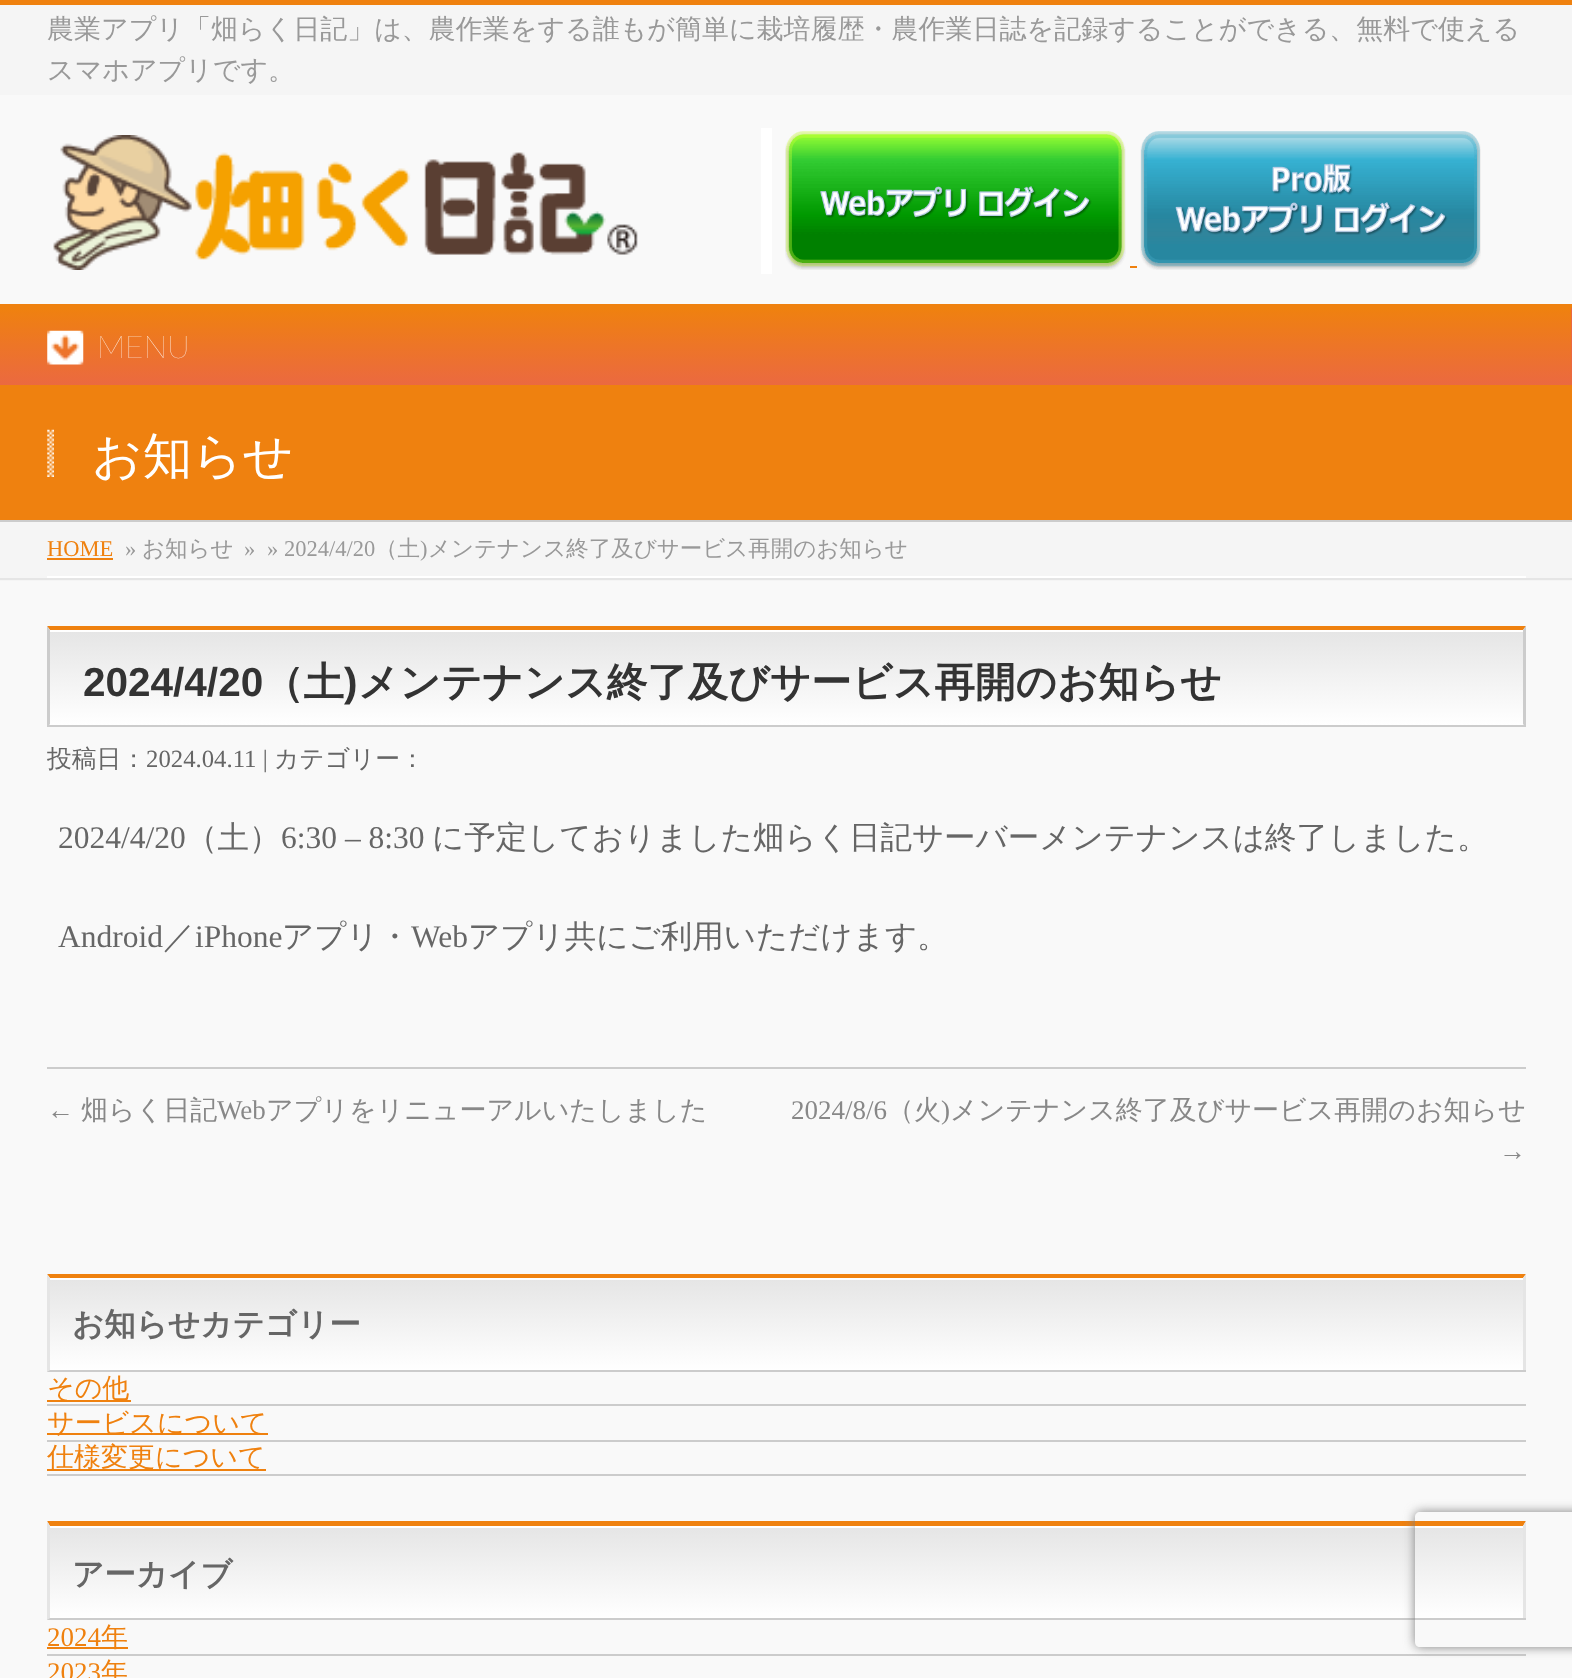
async function draw(canvas) {
  canvas.width = 1572
  canvas.height = 1678
  const ctx = canvas.getContext('2d')
  ctx.miterLimit = 4
  ctx.fontKerning = 'normal'
  async function loadImage(src) {
    const img = new Image()
    img.src = src
    await img.decode()
    return img
  }
  let gradient

  ctx.fillStyle = '#f9f9f9'
  ctx.fillRect(0, 0, 1572, 1678)
  ctx.fillStyle = '#f5f5f5'
  ctx.fillRect(0, 5, 1572, 90)
  ctx.fillStyle = '#ef810f'
  ctx.fillRect(0, 0, 1572, 5)
  ctx.font = '500 27px WenQuanYi Zen Hei'
  ctx.fillStyle = '#999'
  ctx.fillText('農業アプリ「畑らく日記」は、農作業をする誰もが簡単に栽培履歴・農作業日誌を記録することができる、無料で使える', 47, 38)
  ctx.fillText('スマホアプリです。', 47, 79)
  ctx.drawImage(await loadImage('image0.png'), 53, 135, 585, 135)
  ctx.fillStyle = '#fff'
  ctx.fillRect(761, 128, 11, 146)
  ctx.drawImage(await loadImage('image1.png'), 785, 131, 341, 139)
  ctx.fillStyle = '#ef810f'
  ctx.fillRect(1130, 266, 7, 2)
  ctx.drawImage(await loadImage('image2.png'), 1140, 131, 341, 139)
  ctx.fillRect(0, 304, 1572, 4)
  gradient = ctx.createLinearGradient(785, 308, 785, 385)
  gradient.addColorStop(0, '#ef810f')
  gradient.addColorStop(1, '#eb6940')
  ctx.fillStyle = gradient
  ctx.fillRect(0, 308, 1571, 77)
  ctx.fillStyle = '#eb6940'
  ctx.fillRect(1571, 308, 1, 77)
  ctx.drawImage(await loadImage('image3.png'), 47, 330, 37, 35)
  ctx.font = '200 31.5px Lato'
  ctx.fillStyle = '#fff'
  ctx.fillText('MENU', 97, 358)
  ctx.fillStyle = '#ef810f'
  ctx.fillRect(0, 385, 1572, 135)
  ctx.fillStyle = '#ccc'
  ctx.fillRect(0, 520, 1572, 2)
  ctx.drawImage(await loadImage('image4.png'), 47, 429, 7, 48)
  ctx.font = '500 49.5px WenQuanYi Zen Hei'
  ctx.fillStyle = '#fff'
  ctx.fillText('お知らせ', 92, 473)
  ctx.fillStyle = '#f5f5f5'
  ctx.fillRect(0, 522, 1572, 59)
  ctx.fillStyle = '#e5e5e5'
  ctx.fillRect(0, 578, 1572, 2)
  ctx.fillStyle = '#fff'
  ctx.fillRect(47, 576, 1479, 2)
  ctx.font = '22.5px Liberation Serif'
  ctx.fillStyle = '#ef810f'
  ctx.fillText('HOME', 47, 556)
  ctx.fillRect(47, 558, 66, 2)
  ctx.fillStyle = '#999'
  ctx.fillText('»', 125, 556)
  ctx.font = '500 22.5px WenQuanYi Zen Hei'
  ctx.fillText('お知らせ', 142, 556)
  ctx.font = '22.5px Liberation Serif'
  ctx.fillText('»', 244, 556)
  ctx.fillText('» 2024/4/20', 267, 556)
  ctx.font = '500 22.5px WenQuanYi Zen Hei'
  ctx.fillText('（土', 375, 556)
  ctx.font = '22.5px Liberation Serif'
  ctx.fillText(')', 420, 556)
  ctx.font = '500 22.5px WenQuanYi Zen Hei'
  ctx.fillText('メンテナンス終了及びサービス再開のお知らせ', 428, 556)
  gradient = ctx.createLinearGradient(50, 630, 50, 725)
  gradient.addColorStop(0, '#e5e5e5')
  gradient.addColorStop(1, '#fff')
  ctx.fillStyle = gradient
  ctx.fillRect(50, 632, 1473, 93)
  ctx.fillStyle = '#fff'
  ctx.fillRect(50, 630, 1473, 2)
  ctx.fillStyle = '#ef810f'
  ctx.beginPath()
  ctx.moveTo(47, 626)
  ctx.lineTo(1526, 626)
  ctx.lineTo(1523, 630)
  ctx.lineTo(50, 630)
  ctx.closePath()
  ctx.fill()
  ctx.fillStyle = '#ccc'
  ctx.beginPath()
  ctx.moveTo(1526, 626)
  ctx.lineTo(1526, 727)
  ctx.lineTo(1523, 724)
  ctx.lineTo(1523, 630)
  ctx.closePath()
  ctx.fill()
  ctx.fillRect(47, 725, 1479, 2)
  ctx.beginPath()
  ctx.moveTo(47, 727)
  ctx.lineTo(47, 626)
  ctx.lineTo(50, 630)
  ctx.lineTo(50, 724)
  ctx.closePath()
  ctx.fill()
  ctx.font = 'bold 40.5px Liberation Sans'
  ctx.fillStyle = '#333'
  ctx.fillText('2024/4/20', 83, 696)
  ctx.font = 'bold 40.5px WenQuanYi Zen Hei'
  ctx.fillText('（土', 263, 696)
  ctx.font = 'bold 40.5px Liberation Sans'
  ctx.fillText(')', 344, 696)
  ctx.font = 'bold 40.5px WenQuanYi Zen Hei'
  ctx.fillText('メンテナンス終了及びサービス再開のお知らせ', 358, 696)
  ctx.font = '500 24.75px WenQuanYi Zen Hei'
  ctx.fillStyle = '#666'
  ctx.fillText('投稿日：', 47, 767)
  ctx.font = '24.75px Liberation Serif'
  ctx.fillText('2024.04.11 |', 146, 767)
  ctx.font = '500 24.75px WenQuanYi Zen Hei'
  ctx.fillText('カテゴリー：', 274, 767)
  ctx.font = '31.5px Liberation Serif'
  ctx.fillText('2024/4/20', 58, 848)
  ctx.font = '500 31.5px WenQuanYi Zen Hei'
  ctx.fillText('（土）', 186, 848)
  ctx.font = '31.5px Liberation Serif'
  ctx.fillText('6:30 – 8:30', 281, 848)
  ctx.font = '500 31.5px WenQuanYi Zen Hei'
  ctx.fillText('に予定しておりました畑らく日記サーバーメンテナンスは終了しました。', 432, 848)
  ctx.font = '31.5px Liberation Serif'
  ctx.fillText('Android', 58, 947)
  ctx.font = '500 31.5px WenQuanYi Zen Hei'
  ctx.fillText('／', 163, 947)
  ctx.font = '31.5px Liberation Serif'
  ctx.fillText('iPhone', 195, 947)
  ctx.font = '500 31.5px WenQuanYi Zen Hei'
  ctx.fillText('アプリ・', 282, 947)
  ctx.font = '31.5px Liberation Serif'
  ctx.fillText('Web', 411, 947)
  ctx.font = '500 31.5px WenQuanYi Zen Hei'
  ctx.fillText('アプリ共にご利用いただけます。', 468, 947)
  ctx.fillStyle = '#ccc'
  ctx.fillRect(47, 1067, 1479, 2)
  ctx.font = '27px Liberation Serif'
  ctx.fillStyle = '#888'
  ctx.fillText('←', 47, 1119)
  ctx.font = '500 27px WenQuanYi Zen Hei'
  ctx.fillText('畑らく日記', 81, 1119)
  ctx.font = '27px Liberation Serif'
  ctx.fillText('Web', 217, 1119)
  ctx.font = '500 27px WenQuanYi Zen Hei'
  ctx.fillText('アプリをリニューアルいたしました', 266, 1119)
  ctx.font = '27px Liberation Serif'
  ctx.fillText('2024/8/6', 791, 1119)
  ctx.font = '500 27px WenQuanYi Zen Hei'
  ctx.fillText('（火', 887, 1119)
  ctx.font = '27px Liberation Serif'
  ctx.fillText(')', 941, 1119)
  ctx.font = '500 27px WenQuanYi Zen Hei'
  ctx.fillText('メンテナンス終了及びサービス再開のお知らせ', 950, 1119)
  ctx.font = '27px Liberation Serif'
  ctx.fillText('→', 1499, 1160)
  gradient = ctx.createLinearGradient(50, 1278, 50, 1370)
  gradient.addColorStop(0, '#e5e5e5')
  gradient.addColorStop(1, '#fff')
  ctx.fillStyle = gradient
  ctx.fillRect(50, 1280, 1473, 90)
  ctx.fillStyle = '#fff'
  ctx.fillRect(50, 1278, 1473, 2)
  ctx.fillStyle = '#ef810f'
  ctx.beginPath()
  ctx.moveTo(47, 1274)
  ctx.lineTo(1526, 1274)
  ctx.lineTo(1523, 1278)
  ctx.lineTo(50, 1278)
  ctx.closePath()
  ctx.fill()
  ctx.fillStyle = '#e5e5e5'
  ctx.beginPath()
  ctx.moveTo(1526, 1274)
  ctx.lineTo(1526, 1372)
  ctx.lineTo(1523, 1370)
  ctx.lineTo(1523, 1278)
  ctx.closePath()
  ctx.fill()
  ctx.fillStyle = '#ccc'
  ctx.fillRect(47, 1370, 1479, 2)
  ctx.fillStyle = '#e5e5e5'
  ctx.beginPath()
  ctx.moveTo(47, 1372)
  ctx.lineTo(47, 1274)
  ctx.lineTo(50, 1278)
  ctx.lineTo(50, 1370)
  ctx.closePath()
  ctx.fill()
  ctx.font = 'bold 31.5px WenQuanYi Zen Hei'
  ctx.fillStyle = '#666'
  ctx.fillText('お知らせカテゴリー', 72, 1335)
  ctx.fillStyle = '#ccc'
  ctx.fillRect(47, 1404, 1479, 2)
  ctx.fillStyle = '#ef810f'
  ctx.fillRect(47, 1400, 84, 2)
  ctx.font = '500 27px WenQuanYi Zen Hei'
  ctx.fillText('その他', 47, 1397)
  ctx.fillStyle = '#ccc'
  ctx.fillRect(47, 1440, 1479, 2)
  ctx.fillStyle = '#ef810f'
  ctx.fillRect(47, 1433, 221, 2)
  ctx.fillText('サービスについて', 47, 1432)
  ctx.fillStyle = '#ccc'
  ctx.fillRect(47, 1474, 1479, 2)
  ctx.fillStyle = '#ef810f'
  ctx.fillRect(47, 1469, 219, 2)
  ctx.fillText('仕様変更について', 47, 1466)
  gradient = ctx.createLinearGradient(50, 1526, 50, 1618)
  gradient.addColorStop(0, '#e5e5e5')
  gradient.addColorStop(1, '#fff')
  ctx.fillStyle = gradient
  ctx.fillRect(50, 1528, 1473, 90)
  ctx.fillStyle = '#fff'
  ctx.fillRect(50, 1526, 1473, 2)
  ctx.fillStyle = '#ef810f'
  ctx.beginPath()
  ctx.moveTo(47, 1521)
  ctx.lineTo(1526, 1521)
  ctx.lineTo(1523, 1526)
  ctx.lineTo(50, 1526)
  ctx.closePath()
  ctx.fill()
  ctx.fillStyle = '#e5e5e5'
  ctx.beginPath()
  ctx.moveTo(1526, 1521)
  ctx.lineTo(1526, 1620)
  ctx.lineTo(1523, 1618)
  ctx.lineTo(1523, 1526)
  ctx.closePath()
  ctx.fill()
  ctx.fillStyle = '#ccc'
  ctx.fillRect(47, 1618, 1479, 2)
  ctx.fillStyle = '#e5e5e5'
  ctx.beginPath()
  ctx.moveTo(47, 1620)
  ctx.lineTo(47, 1521)
  ctx.lineTo(50, 1526)
  ctx.lineTo(50, 1618)
  ctx.closePath()
  ctx.fill()
  ctx.font = 'bold 31.5px WenQuanYi Zen Hei'
  ctx.fillStyle = '#666'
  ctx.fillText('アーカイブ', 72, 1585)
  ctx.fillStyle = '#ccc'
  ctx.fillRect(47, 1654, 1479, 2)
  ctx.font = '27px Liberation Serif'
  ctx.fillStyle = '#ef810f'
  ctx.fillText('2024', 47, 1646)
  ctx.fillRect(47, 1647, 81, 2)
  ctx.font = '500 27px WenQuanYi Zen Hei'
  ctx.fillText('年', 101, 1646)
  ctx.font = '27px Liberation Serif'
  ctx.fillText('2023', 47, 1681)
  ctx.font = '500 27px WenQuanYi Zen Hei'
  ctx.fillText('年', 101, 1681)
  ctx.save()
  ctx.beginPath()
  ctx.moveTo(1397, 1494)
  ctx.lineTo(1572, 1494)
  ctx.lineTo(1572, 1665)
  ctx.lineTo(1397, 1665)
  ctx.closePath()
  ctx.moveTo(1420, 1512)
  ctx.lineTo(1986, 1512)
  ctx.bezierCurveTo(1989, 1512, 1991, 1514, 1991, 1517)
  ctx.lineTo(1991, 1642)
  ctx.bezierCurveTo(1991, 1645, 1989, 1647, 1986, 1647)
  ctx.lineTo(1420, 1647)
  ctx.bezierCurveTo(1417, 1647, 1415, 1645, 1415, 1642)
  ctx.lineTo(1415, 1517)
  ctx.bezierCurveTo(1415, 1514, 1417, 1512, 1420, 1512)
  ctx.closePath()
  ctx.clip('evenodd')
  ctx.fillStyle = '#808080'
  ctx.filter = 'blur(5.5px)'
  ctx.beginPath()
  ctx.roundRect(1415, 1512, 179, 135, 5)
  ctx.fill()
  ctx.filter = 'none'
  ctx.restore()
}

draw(document.querySelector('canvas'))
